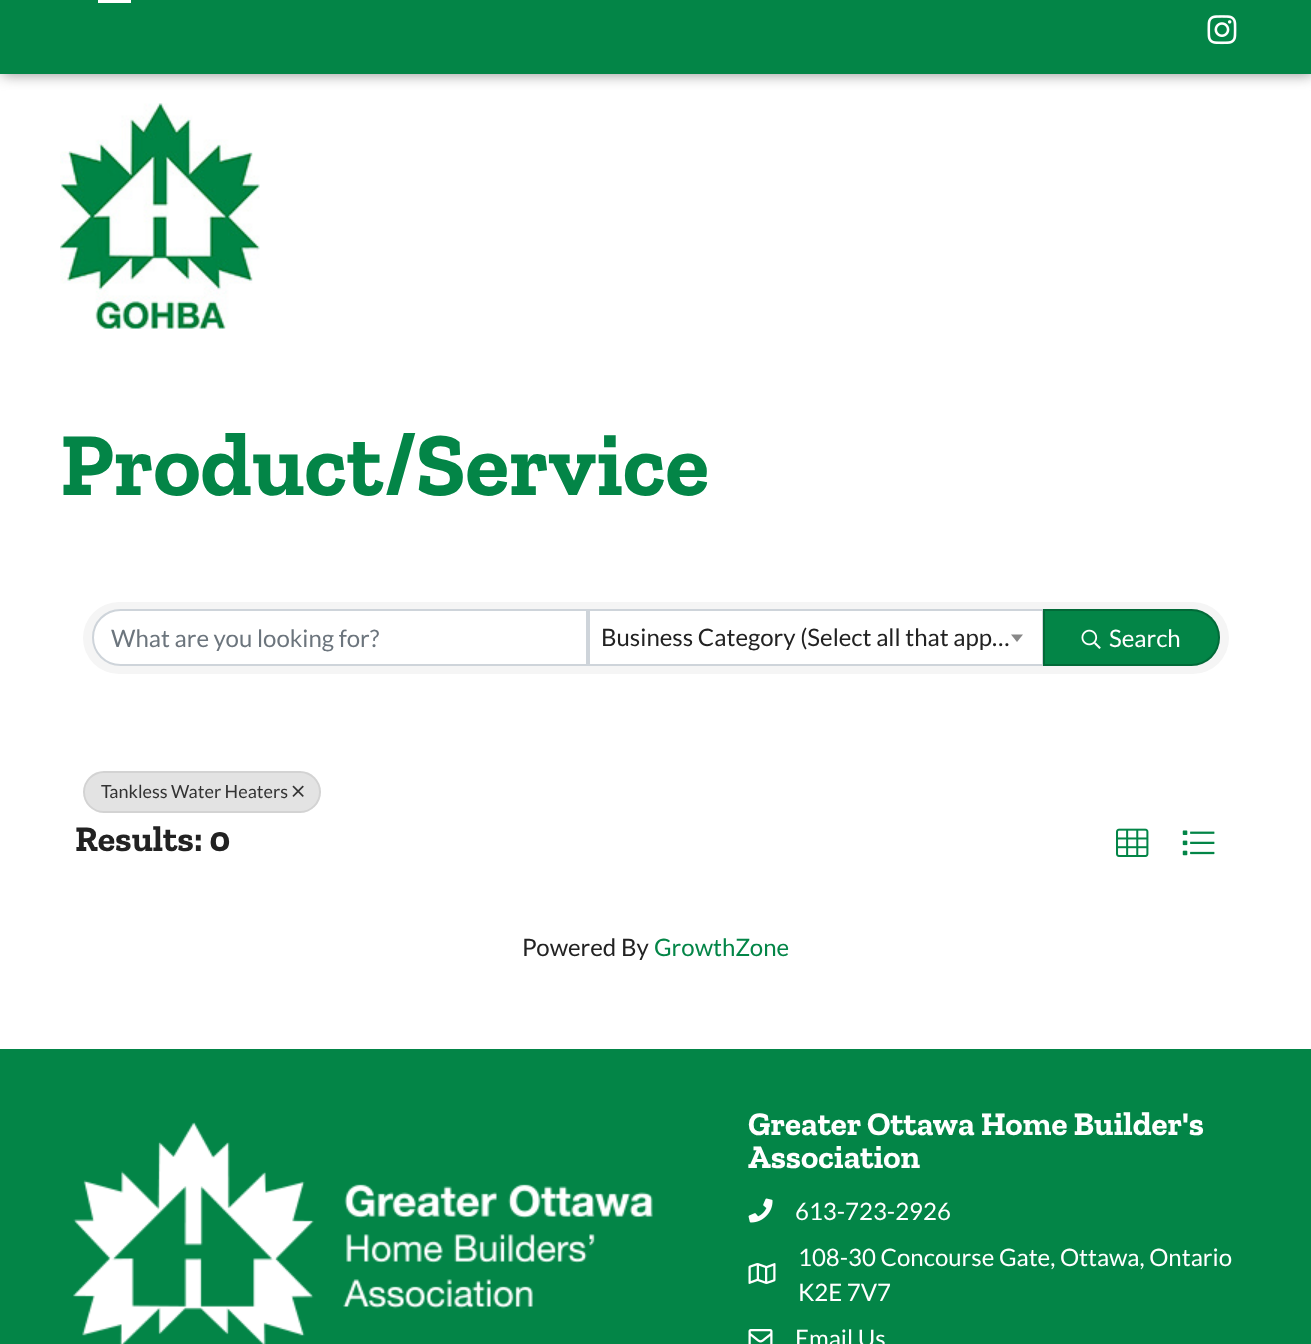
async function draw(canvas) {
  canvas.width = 1311
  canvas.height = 1344
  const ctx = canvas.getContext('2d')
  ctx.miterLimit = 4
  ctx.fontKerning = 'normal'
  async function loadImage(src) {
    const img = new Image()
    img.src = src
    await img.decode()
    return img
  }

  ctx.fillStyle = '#fff'
  ctx.fillRect(0, 0, 1311, 1344)
  ctx.fillStyle = '#999'
  ctx.filter = 'blur(7px)'
  ctx.beginPath()
  ctx.rect(2, -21, 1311, 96)
  ctx.fill()
  ctx.filter = 'none'
  ctx.fillStyle = '#038547'
  ctx.fillRect(0, 0, 1311, 74)
  ctx.fillStyle = '#fff'
  ctx.fillRect(98, 0, 33, 3)
  ctx.drawImage(await loadImage('image0.png'), 1207, 15, 30, 30)
  ctx.drawImage(await loadImage('image1.png'), 60, 103, 200, 226)
  ctx.font = 'bold 90px Zilla Slab'
  ctx.fillStyle = '#038547'
  ctx.fillText('Product/Service', 60, 495)
  ctx.fillStyle = '#f5f5f5'
  ctx.beginPath()
  ctx.roundRect(83, 602, 1146, 72, 36)
  ctx.fill()
  ctx.fillStyle = '#fff'
  ctx.beginPath()
  ctx.roundRect(93, 610, 494, 55, [27.5, 0, 0, 27.5])
  ctx.fill()
  ctx.strokeStyle = '#ced4da'
  ctx.lineWidth = 2
  ctx.stroke()
  ctx.font = '24px Lato'
  ctx.fillStyle = '#6c757d'
  ctx.fillText('What are you looking for?', 111, 647)
  ctx.fillStyle = '#fff'
  ctx.beginPath()
  ctx.rect(589, 610, 454, 55)
  ctx.fill()
  ctx.stroke()
  ctx.fillStyle = '#222'
  ctx.fillText('Business Category (Select all that app…', 601, 646)
  ctx.fillStyle = '#888'
  ctx.beginPath()
  ctx.moveTo(1011, 634.5)
  ctx.lineTo(1023, 634.5)
  ctx.lineTo(1017, 642)
  ctx.closePath()
  ctx.fill()
  ctx.fillStyle = '#038547'
  ctx.beginPath()
  ctx.roundRect(1043, 609, 177, 57, [0, 28.5, 28.5, 0])
  ctx.fill()
  ctx.beginPath()
  ctx.roundRect(1044, 610, 175, 55, [0, 27.5, 27.5, 0])
  ctx.strokeStyle = '#00000033'
  ctx.stroke()
  ctx.drawImage(await loadImage('image2.png'), 1081, 629, 20, 20)
  ctx.fillStyle = '#fff'
  ctx.fillText('Search', 1109, 647)
  ctx.fillStyle = '#e3e3e3'
  ctx.beginPath()
  ctx.roundRect(83, 771, 238, 42, 21)
  ctx.fill()
  ctx.beginPath()
  ctx.roundRect(84, 772, 236, 40, 20)
  ctx.strokeStyle = '#00000012'
  ctx.stroke()
  ctx.font = '18px Lato'
  ctx.fillStyle = '#333'
  ctx.fillText('Tankless Water Heaters', 101, 798)
  ctx.drawImage(await loadImage('image3.png'), 292, 785, 12, 12)
  ctx.font = 'bold 36px Zilla Slab'
  ctx.fillStyle = '#222'
  ctx.fillText('Results: 0', 75, 851)
  ctx.drawImage(await loadImage('image4.png'), 1116, 828, 33, 29)
  ctx.drawImage(await loadImage('image5.png'), 1182, 830, 33, 26)
  ctx.font = '24px Lato'
  ctx.fillText('Powered By', 522, 956)
  ctx.fillStyle = '#038547'
  ctx.fillText('GrowthZone', 654, 956)
  ctx.fillRect(0, 1049, 1311, 295)
  ctx.drawImage(await loadImage('image6.png'), 73, 1122, 580, 222)
  ctx.font = 'bold 33px Zilla Slab'
  ctx.fillStyle = '#fff'
  ctx.fillText('Greater Ottawa Home Builder\'s', 748, 1135)
  ctx.fillText('Association', 748, 1168)
  ctx.drawImage(await loadImage('image7.png'), 748, 1198, 25, 25)
  ctx.font = '24px Lato'
  ctx.fillText('613-723-2926', 795, 1220)
  ctx.drawImage(await loadImage('image8.png'), 748, 1263, 28, 21)
  ctx.fillText('108-30 Concourse Gate, Ottawa, Ontario', 798, 1266)
  ctx.fillText('K2E 7V7', 798, 1301)
  ctx.drawImage(await loadImage('image9.png'), 748, 1329, 25, 15)
  ctx.fillText('Email Us', 795, 1347)
}

draw(document.querySelector('canvas'))
